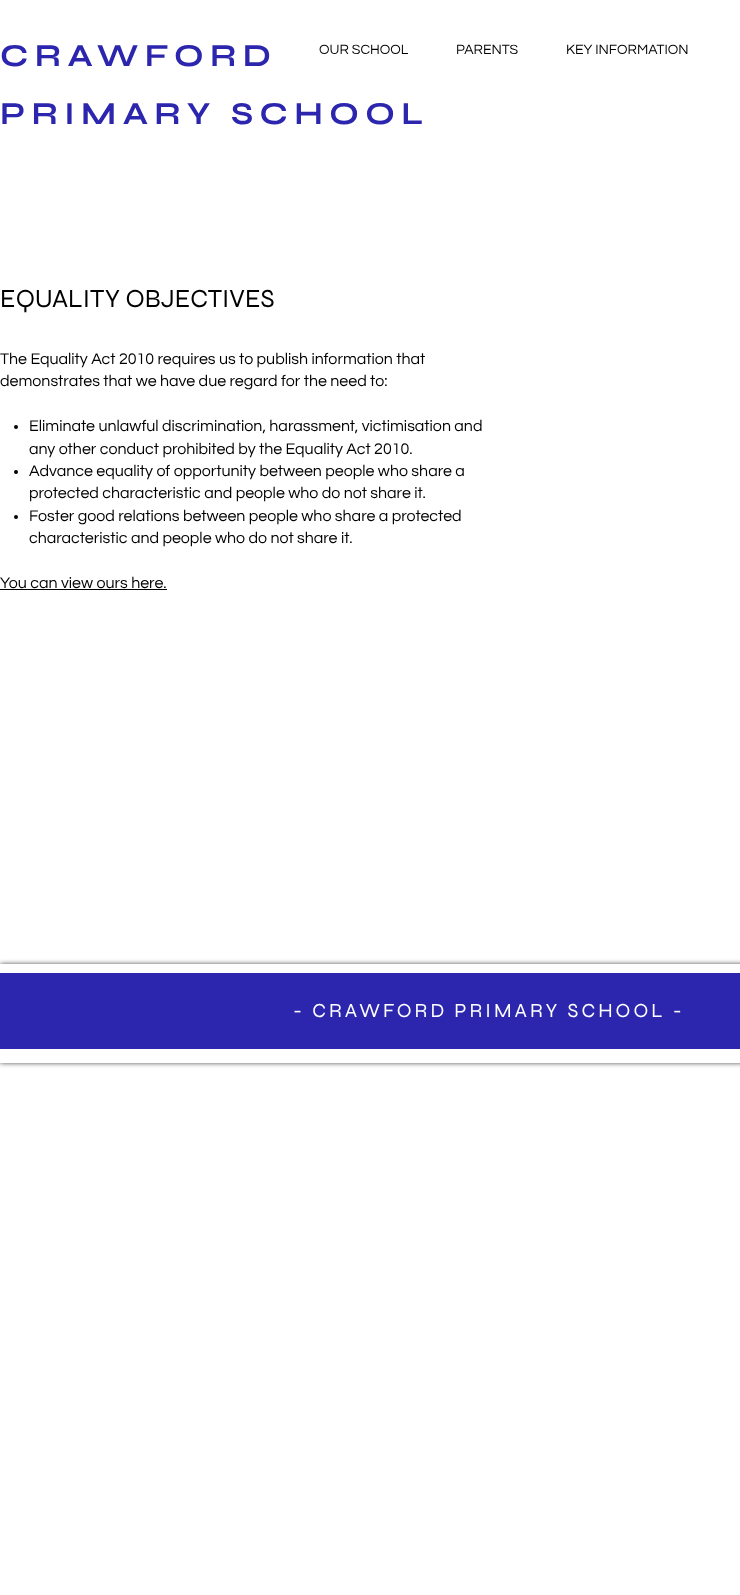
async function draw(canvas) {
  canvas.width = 740
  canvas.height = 1595
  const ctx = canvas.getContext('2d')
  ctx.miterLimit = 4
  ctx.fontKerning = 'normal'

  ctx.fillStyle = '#fff'
  ctx.fillRect(0, 0, 740, 1595)
  ctx.letterSpacing = '6.4px'
  ctx.font = 'bold 32px Syne'
  ctx.fillStyle = '#2c26ae'
  ctx.fillText('CRAWFORD', 0, 66)
  ctx.fillText('PRIMARY SCHOOL', 0, 124)
  ctx.letterSpacing = '0px'
  ctx.font = '14px Questrial'
  ctx.fillStyle = '#000'
  ctx.fillText('OUR SCHOOL', 319, 54)
  ctx.fillText('PARENTS', 456, 54)
  ctx.fillText('KEY INFORMATION', 566, 54)
  ctx.font = '26px Syne'
  ctx.fillText('EQUALITY OBJECTIVES', 0, 307)
  ctx.font = '16px Questrial'
  ctx.fillText('The Equality Act 2010 requires us to publish information that', 0, 364)
  ctx.fillText('demonstrates that we have due regard for the need to:', 0, 386)
  ctx.beginPath()
  ctx.arc(16, 427, 2, 0, 2 * Math.PI)
  ctx.fill()
  ctx.fillText('Eliminate unlawful discrimination, harassment, victimisation and', 29, 431)
  ctx.fillText('any other conduct prohibited by the Equality Act 2010.', 29, 454)
  ctx.beginPath()
  ctx.arc(16, 472, 2, 0, 2 * Math.PI)
  ctx.fill()
  ctx.fillText('Advance equality of opportunity between people who share a', 29, 476)
  ctx.fillText('protected characteristic and people who do not share it.', 29, 498)
  ctx.beginPath()
  ctx.arc(16, 517, 2, 0, 2 * Math.PI)
  ctx.fill()
  ctx.fillText('Foster good relations between people who share a protected', 29, 521)
  ctx.fillText('characteristic and people who do not share it.', 29, 543)
  ctx.fillText('You can view ours here.', 0, 588)
  ctx.fillRect(0, 589, 167, 1)
  ctx.save()
  ctx.beginPath()
  ctx.moveTo(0, 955)
  ctx.lineTo(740, 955)
  ctx.lineTo(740, 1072)
  ctx.lineTo(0, 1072)
  ctx.closePath()
  ctx.moveTo(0, 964)
  ctx.lineTo(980, 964)
  ctx.lineTo(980, 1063)
  ctx.lineTo(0, 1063)
  ctx.closePath()
  ctx.clip('evenodd')
  ctx.fillStyle = '#000000b3'
  ctx.filter = 'blur(2.5px)'
  ctx.beginPath()
  ctx.rect(0, 964, 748, 99)
  ctx.fill()
  ctx.filter = 'none'
  ctx.restore()
  ctx.fillStyle = '#2c26ae'
  ctx.fillRect(0, 973, 740, 76)
  ctx.letterSpacing = '3px'
  ctx.font = '20px Syne'
  ctx.fillStyle = '#fff'
  ctx.fillText('- CRAWFORD PRIMARY SCHOOL -', 293, 1017)
}

draw(document.querySelector('canvas'))
